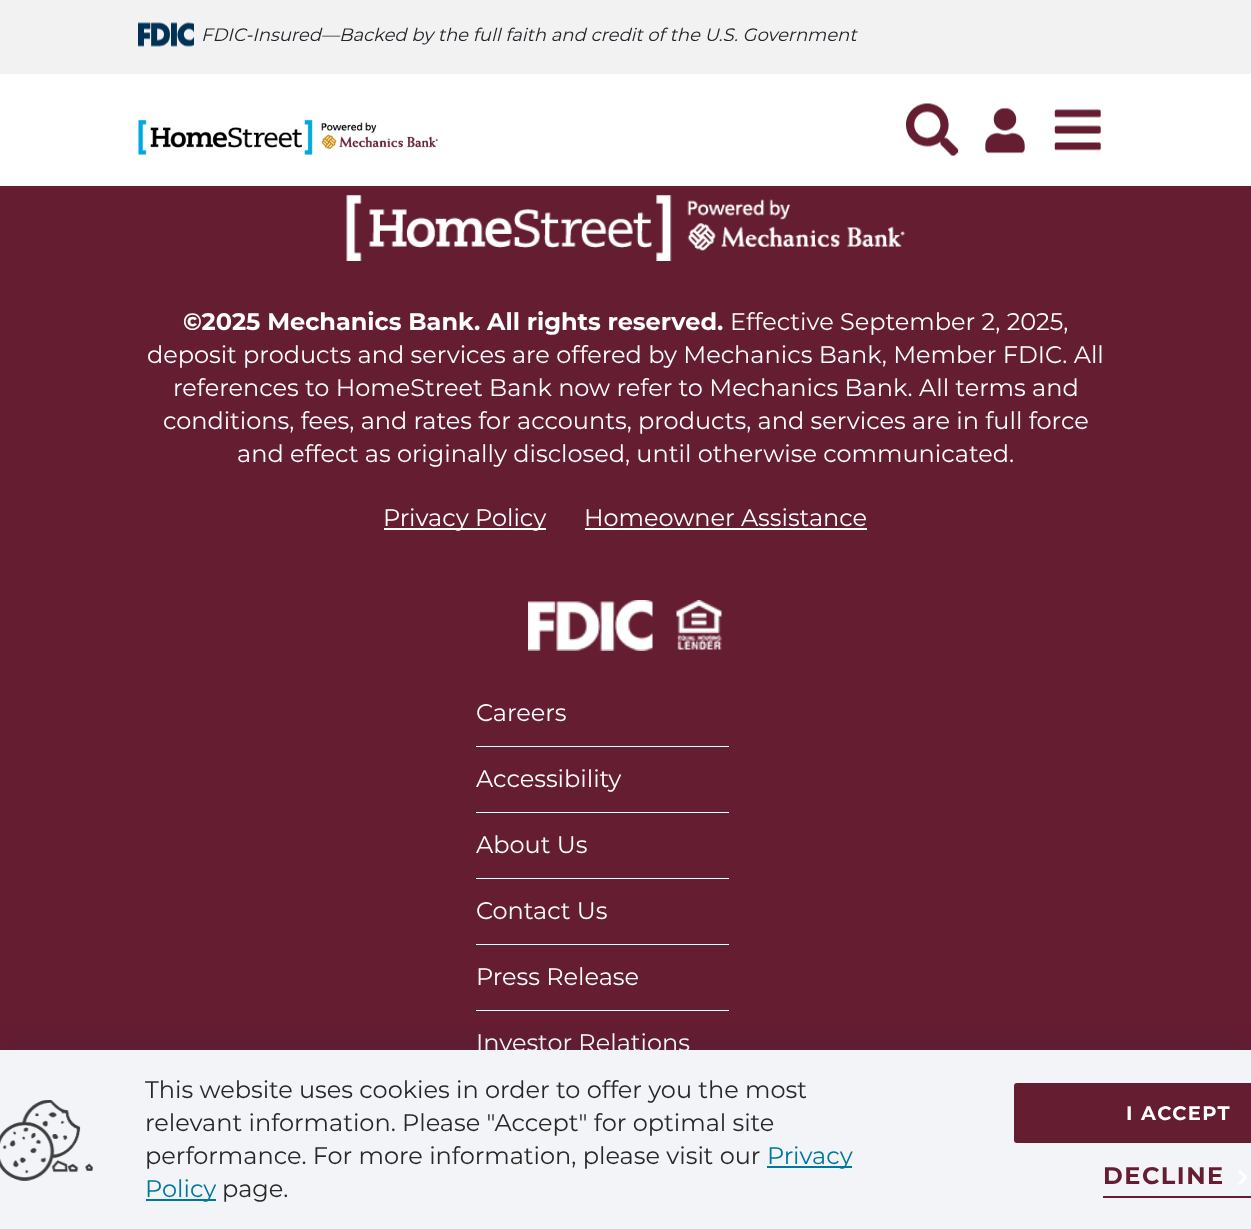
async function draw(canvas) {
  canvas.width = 1251
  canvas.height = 1229
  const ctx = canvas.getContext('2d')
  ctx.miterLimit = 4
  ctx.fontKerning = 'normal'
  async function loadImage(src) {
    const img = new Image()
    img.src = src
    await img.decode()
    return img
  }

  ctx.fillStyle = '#651d32'
  ctx.fillRect(0, 0, 1251, 1229)
  ctx.fillStyle = '#fff'
  ctx.fillRect(0, 74, 1251, 112)
  ctx.fillStyle = '#f2f2f2'
  ctx.fillRect(0, 0, 1251, 74)
  ctx.drawImage(await loadImage('image0.png'), 138, 22, 56, 25)
  ctx.font = 'italic 18px Montserrat'
  ctx.fillStyle = '#212529'
  ctx.fillText('FDIC-Insured—Backed by the full faith and credit of the U.S. Government', 201, 41)
  ctx.drawImage(await loadImage('image1.png'), 138, 119, 300, 36)
  ctx.drawImage(await loadImage('image2.png'), 906, 103, 53, 54)
  ctx.drawImage(await loadImage('image3.png'), 985, 107, 40, 47)
  ctx.drawImage(await loadImage('image4.png'), 1054, 109, 47, 42)
  ctx.drawImage(await loadImage('image5.png'), 346, 195, 559, 66)
  ctx.font = 'bold 24px Montserrat'
  ctx.fillStyle = '#fff'
  ctx.fillText('©2025 Mechanics Bank. All rights reserved.', 183, 330)
  ctx.font = '24px Montserrat'
  ctx.fillText('Effective September 2, 2025,', 730, 330)
  ctx.fillText('deposit products and services are offered by Mechanics Bank, Member FDIC. All', 147, 363)
  ctx.fillText('references to HomeStreet Bank now refer to Mechanics Bank. All terms and', 173, 396)
  ctx.fillText('conditions, fees, and rates for accounts, products, and services are in full force', 163, 429)
  ctx.fillText('and effect as originally disclosed, until otherwise communicated.', 237, 462)
  ctx.fillRect(384, 528, 162, 2)
  ctx.fillText('Privacy Policy', 383, 526)
  ctx.fillText('Homeowner Assistance', 584, 526)
  ctx.fillRect(585, 528, 282, 2)
  ctx.drawImage(await loadImage('image6.png'), 528, 600, 125, 51)
  ctx.drawImage(await loadImage('image7.png'), 676, 600, 46, 50)
  ctx.fillText('Careers', 476, 721)
  ctx.fillRect(476, 746, 253, 1)
  ctx.fillText('Accessibility', 476, 787)
  ctx.fillRect(476, 812, 253, 1)
  ctx.fillText('About Us', 476, 853)
  ctx.fillRect(476, 878, 253, 1)
  ctx.fillText('Contact Us', 476, 919)
  ctx.fillRect(476, 944, 253, 1)
  ctx.fillText('Press Release', 476, 985)
  ctx.fillRect(476, 1010, 253, 1)
  ctx.fillText('Investor Relations', 476, 1051)
  ctx.fillStyle = '#0025401a'
  ctx.filter = 'blur(10.5px)'
  ctx.beginPath()
  ctx.rect(0, 1044, 1251, 180)
  ctx.fill()
  ctx.filter = 'none'
  ctx.fillStyle = '#f2f4f8'
  ctx.fillRect(0, 1050, 1251, 179)
  ctx.drawImage(await loadImage('image8.png'), 0, 1100, 93, 81)
  ctx.fillStyle = '#282828'
  ctx.fillText('This website uses cookies in order to offer you the most', 145, 1098)
  ctx.fillText('relevant information. Please "Accept" for optimal site', 145, 1131)
  ctx.fillText('performance. For more information, please visit our', 145, 1164)
  ctx.fillStyle = '#00779e'
  ctx.fillRect(767, 1166, 85, 2)
  ctx.fillText('Privacy', 767, 1164)
  ctx.fillRect(146, 1199, 70, 2)
  ctx.fillText('Policy', 145, 1197)
  ctx.fillStyle = '#282828'
  ctx.fillText('page.', 222, 1197)
  ctx.fillStyle = '#651d32'
  ctx.beginPath()
  ctx.roundRect(1015, 1084, 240, 58, 2)
  ctx.fill()
  ctx.strokeStyle = '#651d32'
  ctx.lineWidth = 2
  ctx.stroke()
  ctx.letterSpacing = '1.5px'
  ctx.font = 'bold 19.5px Montserrat'
  ctx.fillStyle = '#fff'
  ctx.fillText('I ACCEPT', 1126, 1120)
  ctx.fillStyle = '#651d32'
  ctx.fillRect(1103, 1196, 148, 2)
  ctx.font = 'bold 24px Montserrat'
  ctx.fillText('DECLINE', 1103, 1184)
  ctx.drawImage(await loadImage('image9.png'), 1238, 1170, 9, 15)
}

draw(document.querySelector('canvas'))
